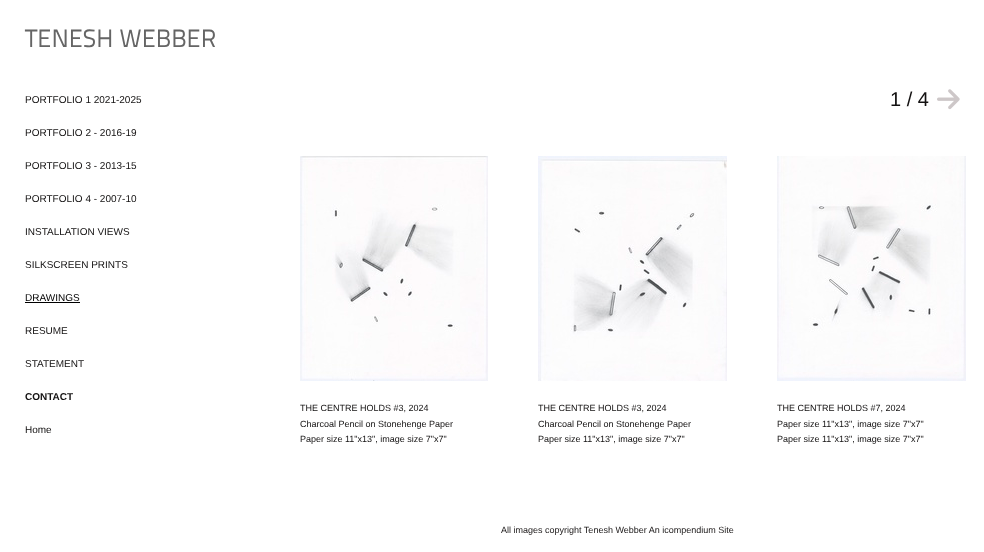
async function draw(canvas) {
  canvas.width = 984
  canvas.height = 552
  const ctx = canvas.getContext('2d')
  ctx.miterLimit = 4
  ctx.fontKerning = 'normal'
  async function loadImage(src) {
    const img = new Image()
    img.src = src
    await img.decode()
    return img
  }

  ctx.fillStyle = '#fff'
  ctx.fillRect(0, 0, 984, 552)
  ctx.font = '25px "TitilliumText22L"'
  ctx.fillStyle = '#656565'
  ctx.fillText('TENESH WEBBER', 25, 47)
  ctx.font = '10px Liberation Sans'
  ctx.fillStyle = '#131111'
  ctx.fillText('PORTFOLIO 1 2021-2025', 25, 103)
  ctx.fillText('PORTFOLIO 2 - 2016-19', 25, 136)
  ctx.fillText('PORTFOLIO 3 - 2013-15', 25, 169)
  ctx.fillText('PORTFOLIO 4 - 2007-10', 25, 202)
  ctx.fillText('INSTALLATION VIEWS', 25, 235)
  ctx.fillText('SILKSCREEN PRINTS', 25, 268)
  ctx.fillStyle = '#000'
  ctx.fillText('DRAWINGS', 25, 301)
  ctx.fillRect(25, 302, 55, 1)
  ctx.fillStyle = '#131111'
  ctx.fillText('RESUME', 25, 334)
  ctx.fillText('STATEMENT', 25, 367)
  ctx.font = 'bold 10px Liberation Sans'
  ctx.fillText('CONTACT', 25, 400)
  ctx.font = '10px Liberation Sans'
  ctx.fillText('Home', 25, 433)
  ctx.font = '20px Liberation Sans'
  ctx.fillText('1 / 4', 890, 106)
  ctx.drawImage(await loadImage('image0.png'), 937, 89, 23, 21)
  ctx.drawImage(await loadImage('image1.png'), 300, 156, 188, 225)
  ctx.font = '9px Liberation Sans'
  ctx.fillText('THE CENTRE HOLDS #3, 2024', 300, 411)
  ctx.fillText('Charcoal Pencil on Stonehenge Paper', 300, 427)
  ctx.fillText('Paper size 11"x13", image size 7"x7"', 300, 442)
  ctx.drawImage(await loadImage('image2.png'), 538, 156, 189, 225)
  ctx.fillText('THE CENTRE HOLDS #3, 2024', 538, 411)
  ctx.fillText('Charcoal Pencil on Stonehenge Paper', 538, 427)
  ctx.fillText('Paper size 11"x13", image size 7"x7"', 538, 442)
  ctx.drawImage(await loadImage('image3.png'), 777, 156, 189, 225)
  ctx.fillText('THE CENTRE HOLDS #7, 2024', 777, 411)
  ctx.fillText('Paper size 11"x13", image size 7"x7"', 777, 427)
  ctx.fillText('Paper size 11"x13", image size 7"x7"', 777, 442)
  ctx.fillStyle = '#1b1818'
  ctx.fillText('All images copyright Tenesh Webber An icompendium Site', 501, 533)
}

draw(document.querySelector('canvas'))
